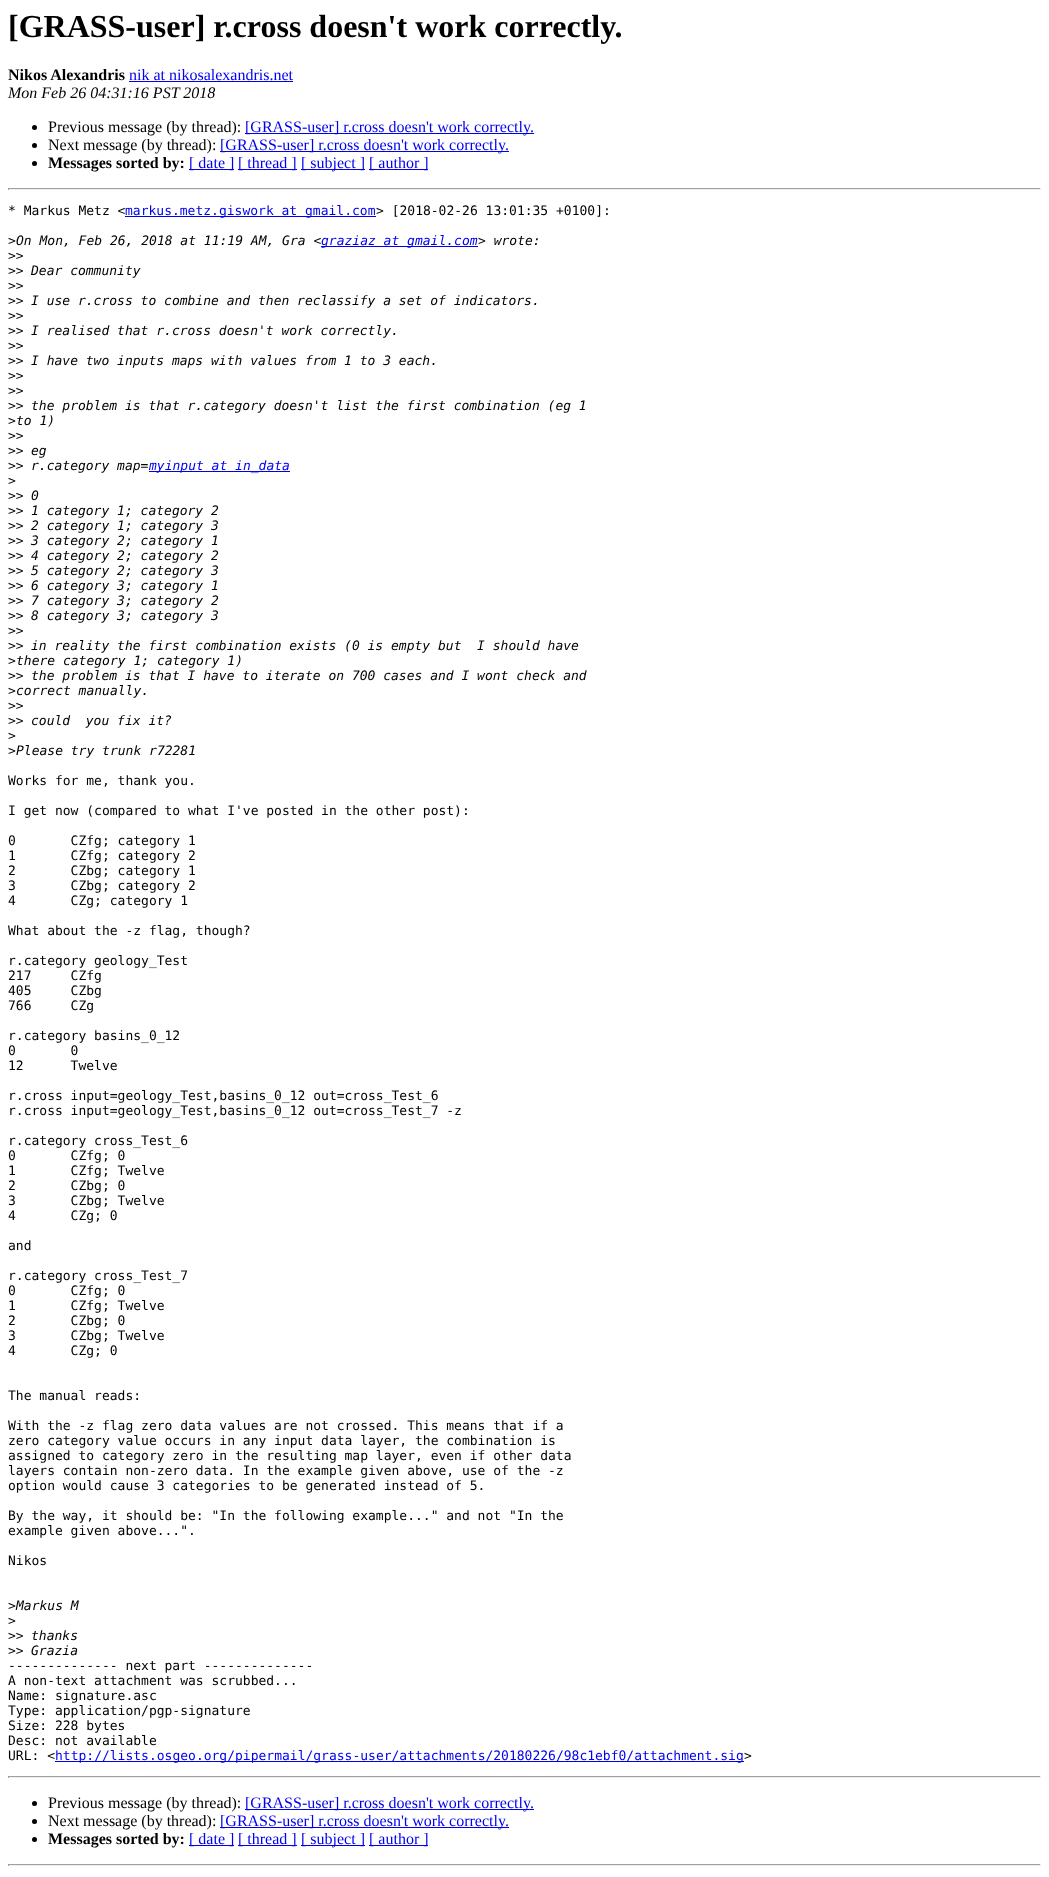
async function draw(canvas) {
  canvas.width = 1049
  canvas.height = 1877
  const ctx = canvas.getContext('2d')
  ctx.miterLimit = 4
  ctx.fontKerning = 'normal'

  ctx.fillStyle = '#fff'
  ctx.fillRect(0, 0, 1049, 1877)
  ctx.font = 'bold 32px Liberation Serif'
  ctx.fillStyle = '#000'
  ctx.fillText('[GRASS-user] r.cross doesn\'t work correctly.', 8, 37)
  ctx.font = 'bold 16px Liberation Serif'
  ctx.fillText('Nikos Alexandris', 8, 80)
  ctx.font = '16px Liberation Serif'
  ctx.fillStyle = '#00e'
  ctx.fillText('nik at nikosalexandris.net', 129, 80)
  ctx.fillRect(129, 81, 164, 1)
  ctx.font = 'italic 16px Liberation Serif'
  ctx.fillStyle = '#000'
  ctx.fillText('Mon Feb 26 04:31:16 PST 2018', 8, 98)
  ctx.beginPath()
  ctx.arc(34.5, 127.5, 2.5, 0, 2 * Math.PI)
  ctx.fill()
  ctx.font = '16px Liberation Serif'
  ctx.fillText('Previous message (by thread):', 48, 132)
  ctx.fillStyle = '#00e'
  ctx.fillRect(245, 133, 289, 1)
  ctx.fillText('[GRASS-user] r.cross doesn\'t work correctly.', 245, 132)
  ctx.fillStyle = '#000'
  ctx.beginPath()
  ctx.arc(34.5, 145.5, 2.5, 0, 2 * Math.PI)
  ctx.fill()
  ctx.fillText('Next message (by thread):', 48, 150)
  ctx.fillStyle = '#00e'
  ctx.fillRect(220, 151, 289, 1)
  ctx.fillText('[GRASS-user] r.cross doesn\'t work correctly.', 220, 150)
  ctx.fillStyle = '#000'
  ctx.beginPath()
  ctx.arc(34.5, 163.5, 2.5, 0, 2 * Math.PI)
  ctx.fill()
  ctx.font = 'bold 16px Liberation Serif'
  ctx.fillText('Messages sorted by:', 48, 168)
  ctx.fillStyle = '#00e'
  ctx.fillRect(189, 169, 45, 1)
  ctx.font = '16px Liberation Serif'
  ctx.fillText('[ date ]', 189, 168)
  ctx.fillRect(238, 169, 59, 1)
  ctx.fillText('[ thread ]', 238, 168)
  ctx.fillRect(301, 169, 64, 1)
  ctx.fillText('[ subject ]', 301, 168)
  ctx.fillRect(369, 169, 59, 1)
  ctx.fillText('[ author ]', 369, 168)
  ctx.fillStyle = '#9f9f9f'
  ctx.fillRect(8, 188, 1033, 1)
  ctx.fillStyle = '#eee'
  ctx.fillRect(1040, 188, 1, 2)
  ctx.fillRect(8, 189, 1033, 1)
  ctx.fillStyle = '#9f9f9f'
  ctx.fillRect(8, 188, 1, 2)
  ctx.font = '13px DejaVu Sans Mono'
  ctx.fillStyle = '#000'
  ctx.fillText('* Markus Metz <', 8, 215)
  ctx.fillStyle = '#00e'
  ctx.fillRect(125, 216, 251, 1)
  ctx.fillText('markus.metz.giswork at gmail.com', 125, 215)
  ctx.fillStyle = '#000'
  ctx.fillText('> [2018-02-26 13:01:35 +0100]:', 376, 215)
  ctx.fillText('>', 8, 245)
  ctx.font = 'italic 13px DejaVu Sans Mono'
  ctx.fillText('On Mon, Feb 26, 2018 at 11:19 AM, Gra <', 16, 245)
  ctx.fillStyle = '#00e'
  ctx.fillRect(321, 246, 157, 1)
  ctx.fillText('graziaz at gmail.com', 321, 245)
  ctx.fillStyle = '#000'
  ctx.fillText('> wrote:', 478, 245)
  ctx.font = '13px DejaVu Sans Mono'
  ctx.fillText('>>', 8, 260)
  ctx.fillText('>>', 8, 275)
  ctx.font = 'italic 13px DejaVu Sans Mono'
  ctx.fillText('Dear community', 31, 275)
  ctx.font = '13px DejaVu Sans Mono'
  ctx.fillText('>>', 8, 290)
  ctx.fillText('>>', 8, 305)
  ctx.font = 'italic 13px DejaVu Sans Mono'
  ctx.fillText('I use r.cross to combine and then reclassify a set of indicators.', 31, 305)
  ctx.font = '13px DejaVu Sans Mono'
  ctx.fillText('>>', 8, 320)
  ctx.fillText('>>', 8, 335)
  ctx.font = 'italic 13px DejaVu Sans Mono'
  ctx.fillText('I realised that r.cross doesn\'t work correctly.', 31, 335)
  ctx.font = '13px DejaVu Sans Mono'
  ctx.fillText('>>', 8, 350)
  ctx.fillText('>>', 8, 365)
  ctx.font = 'italic 13px DejaVu Sans Mono'
  ctx.fillText('I have two inputs maps with values from 1 to 3 each.', 31, 365)
  ctx.font = '13px DejaVu Sans Mono'
  ctx.fillText('>>', 8, 380)
  ctx.fillText('>>', 8, 395)
  ctx.fillText('>>', 8, 410)
  ctx.font = 'italic 13px DejaVu Sans Mono'
  ctx.fillText('the problem is that r.category doesn\'t list the first combination (eg 1', 31, 410)
  ctx.font = '13px DejaVu Sans Mono'
  ctx.fillText('>', 8, 425)
  ctx.font = 'italic 13px DejaVu Sans Mono'
  ctx.fillText('to 1)', 16, 425)
  ctx.font = '13px DejaVu Sans Mono'
  ctx.fillText('>>', 8, 440)
  ctx.fillText('>>', 8, 455)
  ctx.font = 'italic 13px DejaVu Sans Mono'
  ctx.fillText('eg', 31, 455)
  ctx.font = '13px DejaVu Sans Mono'
  ctx.fillText('>>', 8, 470)
  ctx.font = 'italic 13px DejaVu Sans Mono'
  ctx.fillText('r.category map=', 31, 470)
  ctx.fillStyle = '#00e'
  ctx.fillRect(149, 471, 141, 1)
  ctx.fillText('myinput at in_data', 149, 470)
  ctx.font = '13px DejaVu Sans Mono'
  ctx.fillStyle = '#000'
  ctx.fillText('>', 8, 485)
  ctx.fillText('>>', 8, 500)
  ctx.font = 'italic 13px DejaVu Sans Mono'
  ctx.fillText('0', 31, 500)
  ctx.font = '13px DejaVu Sans Mono'
  ctx.fillText('>>', 8, 515)
  ctx.font = 'italic 13px DejaVu Sans Mono'
  ctx.fillText('1 category 1; category 2', 31, 515)
  ctx.font = '13px DejaVu Sans Mono'
  ctx.fillText('>>', 8, 530)
  ctx.font = 'italic 13px DejaVu Sans Mono'
  ctx.fillText('2 category 1; category 3', 31, 530)
  ctx.font = '13px DejaVu Sans Mono'
  ctx.fillText('>>', 8, 545)
  ctx.font = 'italic 13px DejaVu Sans Mono'
  ctx.fillText('3 category 2; category 1', 31, 545)
  ctx.font = '13px DejaVu Sans Mono'
  ctx.fillText('>>', 8, 560)
  ctx.font = 'italic 13px DejaVu Sans Mono'
  ctx.fillText('4 category 2; category 2', 31, 560)
  ctx.font = '13px DejaVu Sans Mono'
  ctx.fillText('>>', 8, 575)
  ctx.font = 'italic 13px DejaVu Sans Mono'
  ctx.fillText('5 category 2; category 3', 31, 575)
  ctx.font = '13px DejaVu Sans Mono'
  ctx.fillText('>>', 8, 590)
  ctx.font = 'italic 13px DejaVu Sans Mono'
  ctx.fillText('6 category 3; category 1', 31, 590)
  ctx.font = '13px DejaVu Sans Mono'
  ctx.fillText('>>', 8, 605)
  ctx.font = 'italic 13px DejaVu Sans Mono'
  ctx.fillText('7 category 3; category 2', 31, 605)
  ctx.font = '13px DejaVu Sans Mono'
  ctx.fillText('>>', 8, 620)
  ctx.font = 'italic 13px DejaVu Sans Mono'
  ctx.fillText('8 category 3; category 3', 31, 620)
  ctx.font = '13px DejaVu Sans Mono'
  ctx.fillText('>>', 8, 635)
  ctx.fillText('>>', 8, 650)
  ctx.font = 'italic 13px DejaVu Sans Mono'
  ctx.fillText('in reality the first combination exists (0 is empty but  I should have', 31, 650)
  ctx.font = '13px DejaVu Sans Mono'
  ctx.fillText('>', 8, 665)
  ctx.font = 'italic 13px DejaVu Sans Mono'
  ctx.fillText('there category 1; category 1)', 16, 665)
  ctx.font = '13px DejaVu Sans Mono'
  ctx.fillText('>>', 8, 680)
  ctx.font = 'italic 13px DejaVu Sans Mono'
  ctx.fillText('the problem is that I have to iterate on 700 cases and I wont check and', 31, 680)
  ctx.font = '13px DejaVu Sans Mono'
  ctx.fillText('>', 8, 695)
  ctx.font = 'italic 13px DejaVu Sans Mono'
  ctx.fillText('correct manually.', 16, 695)
  ctx.font = '13px DejaVu Sans Mono'
  ctx.fillText('>>', 8, 710)
  ctx.fillText('>>', 8, 725)
  ctx.font = 'italic 13px DejaVu Sans Mono'
  ctx.fillText('could  you fix it?', 31, 725)
  ctx.font = '13px DejaVu Sans Mono'
  ctx.fillText('>', 8, 740)
  ctx.fillText('>', 8, 755)
  ctx.font = 'italic 13px DejaVu Sans Mono'
  ctx.fillText('Please try trunk r72281', 16, 755)
  ctx.font = '13px DejaVu Sans Mono'
  ctx.fillText('Works for me, thank you.', 8, 785)
  ctx.fillText('I get now (compared to what I\'ve posted in the other post):', 8, 815)
  ctx.fillText('0       CZfg; category 1', 8, 845)
  ctx.fillText('1       CZfg; category 2', 8, 860)
  ctx.fillText('2       CZbg; category 1', 8, 875)
  ctx.fillText('3       CZbg; category 2', 8, 890)
  ctx.fillText('4       CZg; category 1', 8, 905)
  ctx.fillText('What about the -z flag, though?', 8, 935)
  ctx.fillText('r.category geology_Test', 8, 965)
  ctx.fillText('217     CZfg', 8, 980)
  ctx.fillText('405     CZbg', 8, 995)
  ctx.fillText('766     CZg', 8, 1010)
  ctx.fillText('r.category basins_0_12', 8, 1040)
  ctx.fillText('0       0', 8, 1055)
  ctx.fillText('12      Twelve', 8, 1070)
  ctx.fillText('r.cross input=geology_Test,basins_0_12 out=cross_Test_6', 8, 1100)
  ctx.fillText('r.cross input=geology_Test,basins_0_12 out=cross_Test_7 -z', 8, 1115)
  ctx.fillText('r.category cross_Test_6', 8, 1145)
  ctx.fillText('0       CZfg; 0', 8, 1160)
  ctx.fillText('1       CZfg; Twelve', 8, 1175)
  ctx.fillText('2       CZbg; 0', 8, 1190)
  ctx.fillText('3       CZbg; Twelve', 8, 1205)
  ctx.fillText('4       CZg; 0', 8, 1220)
  ctx.fillText('and', 8, 1250)
  ctx.fillText('r.category cross_Test_7', 8, 1280)
  ctx.fillText('0       CZfg; 0', 8, 1295)
  ctx.fillText('1       CZfg; Twelve', 8, 1310)
  ctx.fillText('2       CZbg; 0', 8, 1325)
  ctx.fillText('3       CZbg; Twelve', 8, 1340)
  ctx.fillText('4       CZg; 0', 8, 1355)
  ctx.fillText('The manual reads:', 8, 1400)
  ctx.fillText('With the -z flag zero data values are not crossed. This means that if a', 8, 1430)
  ctx.fillText('zero category value occurs in any input data layer, the combination is', 8, 1445)
  ctx.fillText('assigned to category zero in the resulting map layer, even if other data', 8, 1460)
  ctx.fillText('layers contain non-zero data. In the example given above, use of the -z', 8, 1475)
  ctx.fillText('option would cause 3 categories to be generated instead of 5.', 8, 1490)
  ctx.fillText('By the way, it should be: "In the following example..." and not "In the', 8, 1520)
  ctx.fillText('example given above...".', 8, 1535)
  ctx.fillText('Nikos', 8, 1565)
  ctx.fillText('>', 8, 1610)
  ctx.font = 'italic 13px DejaVu Sans Mono'
  ctx.fillText('Markus M', 16, 1610)
  ctx.font = '13px DejaVu Sans Mono'
  ctx.fillText('>', 8, 1625)
  ctx.fillText('>>', 8, 1640)
  ctx.font = 'italic 13px DejaVu Sans Mono'
  ctx.fillText('thanks', 31, 1640)
  ctx.font = '13px DejaVu Sans Mono'
  ctx.fillText('>>', 8, 1655)
  ctx.font = 'italic 13px DejaVu Sans Mono'
  ctx.fillText('Grazia', 31, 1655)
  ctx.font = '13px DejaVu Sans Mono'
  ctx.fillText('-------------- next part --------------', 8, 1670)
  ctx.fillText('A non-text attachment was scrubbed...', 8, 1685)
  ctx.fillText('Name: signature.asc', 8, 1700)
  ctx.fillText('Type: application/pgp-signature', 8, 1715)
  ctx.fillText('Size: 228 bytes', 8, 1730)
  ctx.fillText('Desc: not available', 8, 1745)
  ctx.fillText('URL: <', 8, 1760)
  ctx.fillStyle = '#00e'
  ctx.fillRect(55, 1761, 689, 1)
  ctx.fillText('http://lists.osgeo.org/pipermail/grass-user/attachments/20180226/98c1ebf0/attachment.sig', 55, 1760)
  ctx.fillStyle = '#000'
  ctx.fillText('>', 744, 1760)
  ctx.fillStyle = '#9f9f9f'
  ctx.fillRect(8, 1776, 1033, 1)
  ctx.fillStyle = '#eee'
  ctx.fillRect(1040, 1776, 1, 2)
  ctx.fillRect(8, 1777, 1033, 1)
  ctx.fillStyle = '#9f9f9f'
  ctx.fillRect(8, 1776, 1, 2)
  ctx.fillStyle = '#000'
  ctx.beginPath()
  ctx.arc(34.5, 1803.5, 2.5, 0, 2 * Math.PI)
  ctx.fill()
  ctx.font = '16px Liberation Serif'
  ctx.fillText('Previous message (by thread):', 48, 1808)
  ctx.fillStyle = '#00e'
  ctx.fillRect(245, 1809, 289, 1)
  ctx.fillText('[GRASS-user] r.cross doesn\'t work correctly.', 245, 1808)
  ctx.fillStyle = '#000'
  ctx.beginPath()
  ctx.arc(34.5, 1821.5, 2.5, 0, 2 * Math.PI)
  ctx.fill()
  ctx.fillText('Next message (by thread):', 48, 1826)
  ctx.fillStyle = '#00e'
  ctx.fillRect(220, 1827, 289, 1)
  ctx.fillText('[GRASS-user] r.cross doesn\'t work correctly.', 220, 1826)
  ctx.fillStyle = '#000'
  ctx.beginPath()
  ctx.arc(34.5, 1839.5, 2.5, 0, 2 * Math.PI)
  ctx.fill()
  ctx.font = 'bold 16px Liberation Serif'
  ctx.fillText('Messages sorted by:', 48, 1844)
  ctx.fillStyle = '#00e'
  ctx.fillRect(189, 1845, 45, 1)
  ctx.font = '16px Liberation Serif'
  ctx.fillText('[ date ]', 189, 1844)
  ctx.fillRect(238, 1845, 59, 1)
  ctx.fillText('[ thread ]', 238, 1844)
  ctx.fillRect(301, 1845, 64, 1)
  ctx.fillText('[ subject ]', 301, 1844)
  ctx.fillRect(369, 1845, 59, 1)
  ctx.fillText('[ author ]', 369, 1844)
  ctx.fillStyle = '#9f9f9f'
  ctx.fillRect(8, 1864, 1033, 1)
  ctx.fillStyle = '#eee'
  ctx.fillRect(1040, 1864, 1, 2)
  ctx.fillRect(8, 1865, 1033, 1)
  ctx.fillStyle = '#9f9f9f'
  ctx.fillRect(8, 1864, 1, 2)
}

draw(document.querySelector('canvas'))
